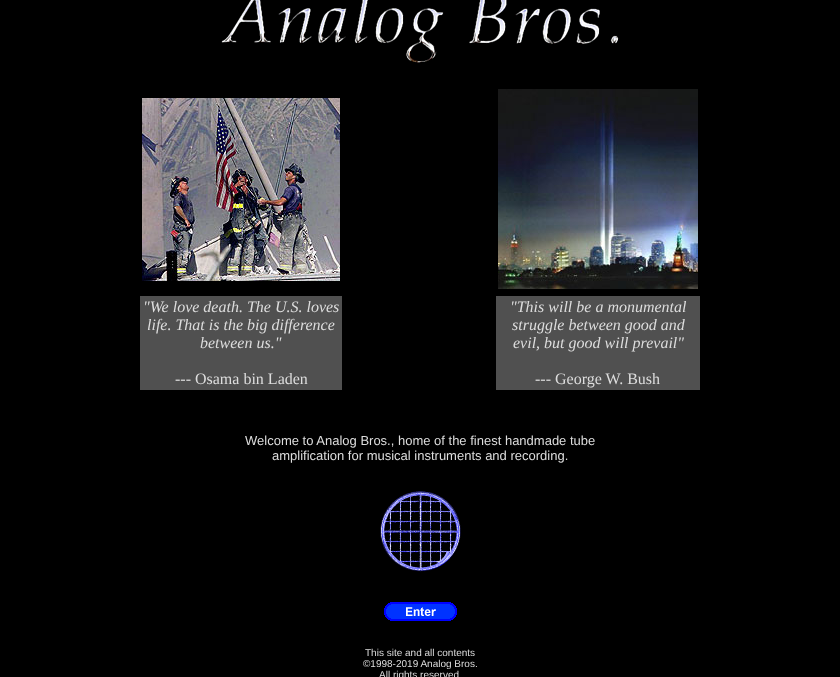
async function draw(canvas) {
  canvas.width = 840
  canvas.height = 677
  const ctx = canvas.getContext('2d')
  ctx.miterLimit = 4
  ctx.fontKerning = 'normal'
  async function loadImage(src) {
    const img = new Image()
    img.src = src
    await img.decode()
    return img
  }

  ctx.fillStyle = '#000'
  ctx.fillRect(0, 0, 840, 677)
  ctx.drawImage(await loadImage('image0.png'), 221, 0, 398, 63)
  ctx.drawImage(await loadImage('image1.png'), 142, 98, 198, 183)
  ctx.drawImage(await loadImage('image2.png'), 498, 89, 200, 200)
  ctx.fillStyle = '#505050'
  ctx.fillRect(140, 296, 202, 94)
  ctx.font = 'italic 16px Liberation Serif'
  ctx.fillStyle = '#ddd'
  ctx.fillText('"We love death. The U.S. loves', 143, 312)
  ctx.fillText('life. That is the big difference', 147, 330)
  ctx.fillText('between us."', 200, 348)
  ctx.font = '16px Liberation Serif'
  ctx.fillText('--- Osama bin Laden', 175, 384)
  ctx.fillStyle = '#505050'
  ctx.fillRect(496, 296, 204, 94)
  ctx.font = 'italic 16px Liberation Serif'
  ctx.fillStyle = '#ddd'
  ctx.fillText('"This will be a monumental', 510, 312)
  ctx.fillText('struggle between good and', 512, 330)
  ctx.fillText('evil, but good will prevail"', 513, 348)
  ctx.font = '16px Liberation Serif'
  ctx.fillText('--- George W. Bush', 535, 384)
  ctx.font = '13px Liberation Sans'
  ctx.fillText('Welcome to Analog Bros., home of the finest handmade tube', 245, 445)
  ctx.fillText('amplification for musical instruments and recording.', 272, 460)
  ctx.drawImage(await loadImage('image3.png'), 380, 491, 81, 81)
  ctx.drawImage(await loadImage('image4.png'), 384, 602, 73, 19)
  ctx.font = '10px Liberation Sans'
  ctx.fillText('This site and all contents', 365, 656)
  ctx.fillText('©1998-2019 Analog Bros.', 363, 667)
  ctx.fillText('All rights reserved.', 379, 678)
}

draw(document.querySelector('canvas'))
